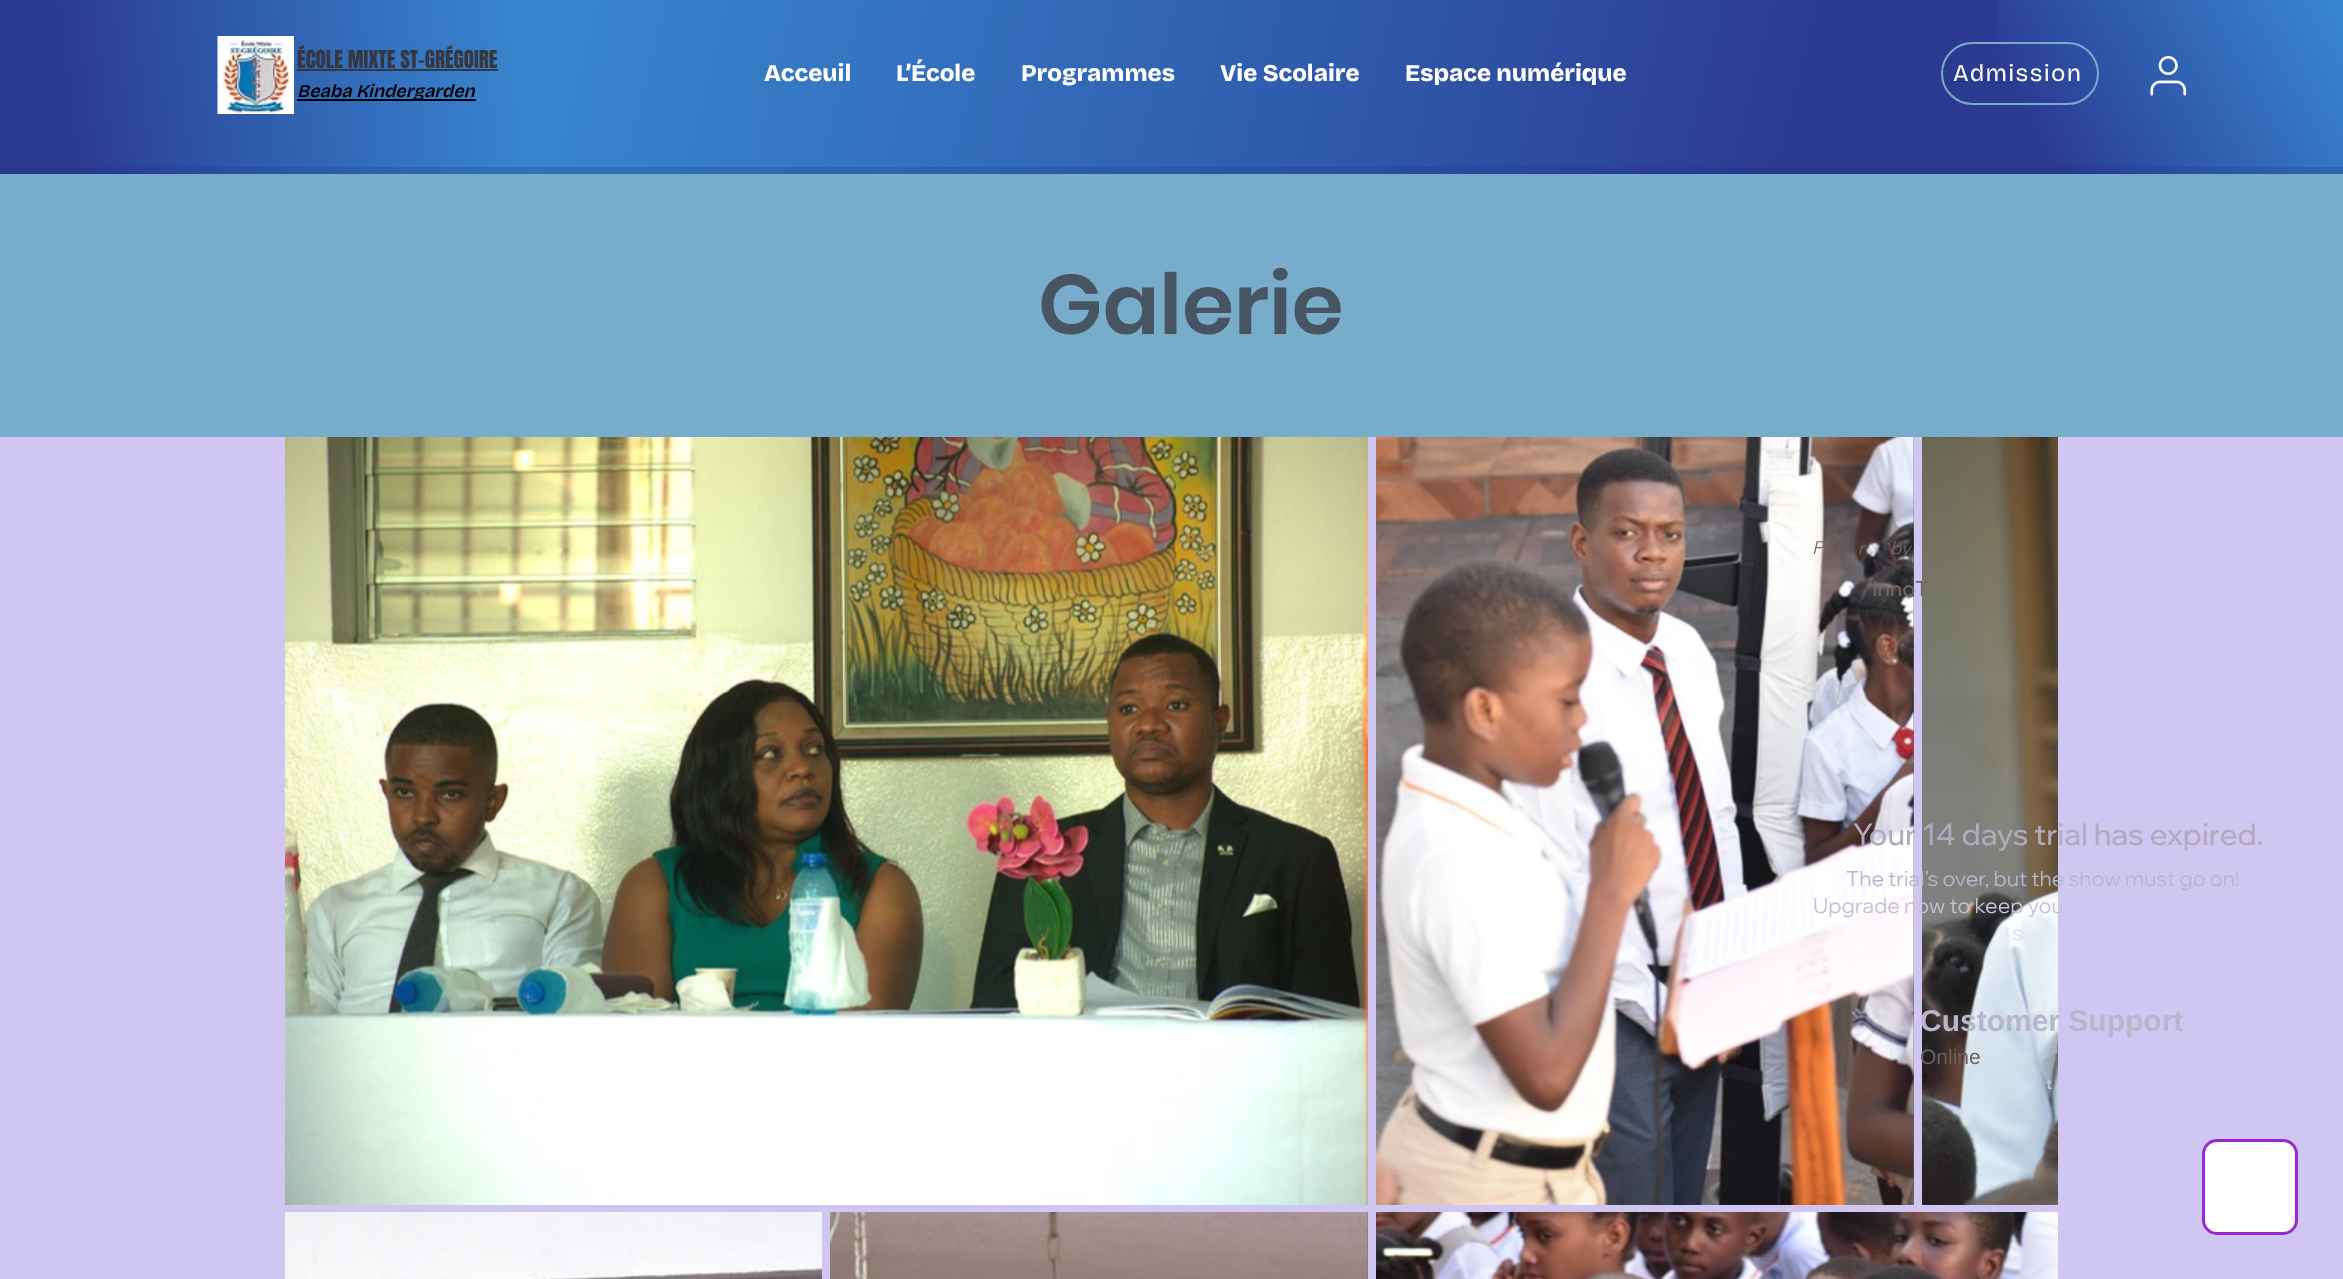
async function draw(canvas) {
  canvas.width = 2343
  canvas.height = 1279
  const ctx = canvas.getContext('2d')
  ctx.miterLimit = 4
  ctx.fontKerning = 'normal'
  async function loadImage(src) {
    const img = new Image()
    img.src = src
    await img.decode()
    return img
  }
  let gradient

  ctx.fillStyle = '#cfc7f2'
  ctx.fillRect(0, 0, 2343, 1279)
  ctx.fillStyle = '#577285'
  ctx.fillRect(0, 167, 2343, 7)
  ctx.fillStyle = '#77acca'
  ctx.fillRect(0, 0, 2343, 167)
  gradient = ctx.createLinearGradient(535, 54, -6.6, 120)
  gradient.addColorStop(0, '#1e77d0b5')
  gradient.addColorStop(0.86, '#25318deb')
  ctx.fillStyle = gradient
  ctx.fillRect(0, 0, 528, 174)
  ctx.drawImage(await loadImage('image0.png'), 217, 36, 77, 78)
  ctx.font = '21px Anton'
  ctx.fillStyle = '#37383f'
  ctx.fillText('ÉCOLE MIXTE ST-GRÉGOIRE', 297, 68)
  ctx.fillRect(297, 69, 201, 2)
  ctx.fillStyle = '#000'
  ctx.fillRect(297, 99, 179, 2)
  ctx.font = 'italic 600 18px Bricolage Grotesque'
  ctx.fillText('Beaba Kindergarden', 297, 97)
  gradient = ctx.createLinearGradient(551, -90, 1974, 264)
  gradient.addColorStop(0, '#1e77d0b5')
  gradient.addColorStop(0.86, '#25318deb')
  ctx.fillStyle = gradient
  ctx.fillRect(528, 0, 1469, 174)
  ctx.font = '800 24px Bricolage Grotesque'
  ctx.fillStyle = '#fff'
  ctx.fillText('Acceuil', 764, 81)
  ctx.fillText('L’École', 896, 81)
  ctx.fillText('Programmes', 1021, 81)
  ctx.fillText('Vie Scolaire', 1220, 81)
  ctx.fillText('Espace numérique', 1405, 81)
  gradient = ctx.createLinearGradient(2339, -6.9, 2000, 181)
  gradient.addColorStop(0, '#1e77d0b5')
  gradient.addColorStop(0.86, '#25318deb')
  ctx.fillStyle = gradient
  ctx.fillRect(1997, 0, 346, 174)
  ctx.beginPath()
  ctx.roundRect(1942, 43, 156, 61, 30.5)
  ctx.strokeStyle = '#77acca'
  ctx.lineWidth = 2
  ctx.stroke()
  ctx.letterSpacing = '1.25px'
  ctx.font = '24px Bricolage Grotesque'
  ctx.fillStyle = '#fff'
  ctx.fillText('Admission', 1953, 81)
  ctx.drawImage(await loadImage('image1.png'), 2150, 55, 37, 41)
  ctx.fillStyle = '#77acca'
  ctx.fillRect(0, 174, 2343, 263)
  ctx.letterSpacing = '0px'
  ctx.font = '600 84px Poppins'
  ctx.fillStyle = '#475562'
  ctx.fillText('Galerie', 1038, 334)
  ctx.drawImage(await loadImage('image2.png'), 285, 437, 1083, 768)
  ctx.fillStyle = '#577285'
  ctx.fillRect(1913, 437, 1, 768)
  ctx.drawImage(await loadImage('image3.png'), 1376, 437, 538, 768)
  ctx.drawImage(await loadImage('image4.png'), 1922, 437, 136, 768)
  ctx.drawImage(await loadImage('image5.png'), 285, 1212, 537, 67)
  ctx.fillRect(1367, 1212, 1, 67)
  ctx.drawImage(await loadImage('image6.png'), 830, 1212, 538, 67)
  ctx.drawImage(await loadImage('image7.png'), 1376, 1212, 682, 67)
  ctx.font = 'italic 18px Wix Madefor Display'
  ctx.fillStyle = '#70696a'
  ctx.fillText('P', 1812, 554)
  ctx.fillText('r', 1858, 554)
  ctx.fillText('by', 1890, 554)
  ctx.font = '500 21px Wix Madefor Display'
  ctx.fillStyle = '#6f6a61'
  ctx.fillText('InnoT', 1872, 596)
  ctx.font = '500 30px Wix Madefor Display'
  ctx.fillStyle = '#b1aabe'
  ctx.fillText('Your 14 days trial has expired.', 1853, 845)
  ctx.font = '21px Wix Madefor Display'
  ctx.fillStyle = '#b7b6cd'
  ctx.fillText('The trial\'s over, but the show must go on!', 1846, 886)
  ctx.fillStyle = '#c5c1d7'
  ctx.fillText('Upgrade now to keep you', 1813, 913)
  ctx.fillStyle = '#dcdbf4'
  ctx.fillText('s', 2012, 940)
  ctx.font = '500 15px Wix Madefor Display'
  ctx.fillStyle = '#c7c7e8'
  ctx.fillText('t', 2046, 1089)
  ctx.font = 'bold 30px Liberation Sans'
  ctx.fillStyle = '#b7b6cd'
  ctx.fillText('Customer Support', 1920, 1031)
  ctx.font = '21px Liberation Sans'
  ctx.fillStyle = '#696161'
  ctx.fillText('Online', 1920, 1064)
  ctx.fillStyle = '#fff'
  ctx.beginPath()
  ctx.roundRect(2203.5, 1140.5, 93, 93, 13.5)
  ctx.fill()
  ctx.strokeStyle = '#9a27d4'
  ctx.lineWidth = 3
  ctx.stroke()
}

draw(document.querySelector('canvas'))
